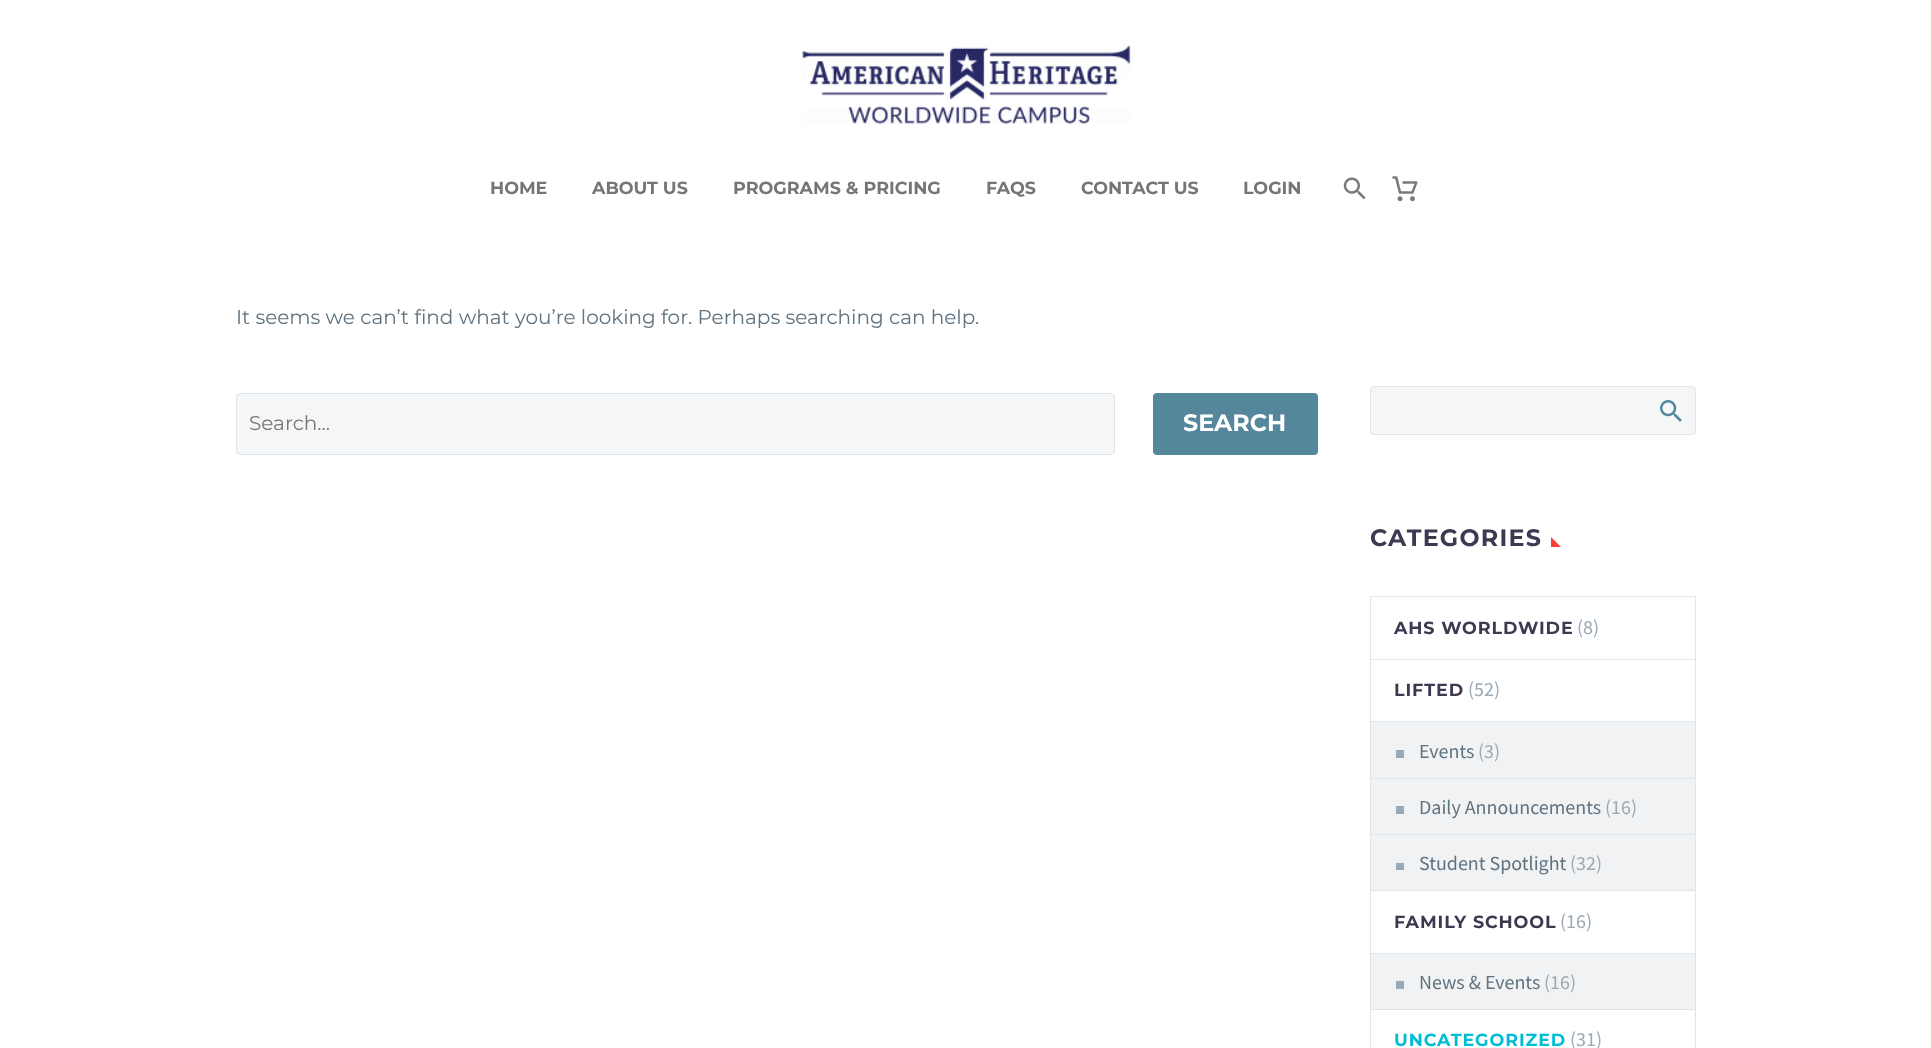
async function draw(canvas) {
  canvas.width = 1931
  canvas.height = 1048
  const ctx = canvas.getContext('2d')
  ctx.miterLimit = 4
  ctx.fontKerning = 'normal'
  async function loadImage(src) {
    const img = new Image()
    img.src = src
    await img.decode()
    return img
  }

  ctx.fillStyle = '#fff'
  ctx.fillRect(0, 0, 1931, 1048)
  ctx.drawImage(await loadImage('image0.png'), 802, 45, 329, 79)
  ctx.font = 'bold 17.5px Montserrat'
  ctx.fillStyle = '#757575'
  ctx.fillText('HOME', 490, 194)
  ctx.fillText('ABOUT US', 592, 194)
  ctx.fillText('PROGRAMS & PRICING', 733, 194)
  ctx.fillText('FAQS', 986, 194)
  ctx.fillText('CONTACT US', 1081, 194)
  ctx.fillText('LOGIN', 1243, 194)
  ctx.drawImage(await loadImage('image1.png'), 1343, 177, 23, 23)
  ctx.drawImage(await loadImage('image2.png'), 1392, 176, 26, 26)
  ctx.font = '20px Montserrat'
  ctx.fillStyle = '#5f727f'
  ctx.fillText('It seems we can’t find what you’re looking for. Perhaps searching can help.', 236, 324)
  ctx.fillStyle = '#f4f6f7'
  ctx.beginPath()
  ctx.roundRect(236.5, 393.5, 878, 61, 3.5)
  ctx.fill()
  ctx.strokeStyle = '#dfe5e8'
  ctx.stroke()
  ctx.fillStyle = '#757575'
  ctx.fillText('Search...', 249, 430)
  ctx.fillStyle = '#54869c'
  ctx.beginPath()
  ctx.roundRect(1153, 393, 165, 62, 4)
  ctx.fill()
  ctx.font = 'bold 23.75px Montserrat'
  ctx.fillStyle = '#fff'
  ctx.fillText('SEARCH', 1183, 431)
  ctx.fillStyle = '#f4f6f7'
  ctx.beginPath()
  ctx.roundRect(1370.5, 386.5, 325, 48, 3.5)
  ctx.fill()
  ctx.stroke()
  ctx.drawImage(await loadImage('image3.png'), 1660, 400, 22, 22)
  ctx.letterSpacing = '1.25px'
  ctx.fillStyle = '#3c3950'
  ctx.fillText('CATEGORIES', 1370, 546)
  ctx.fillStyle = '#f44336'
  ctx.beginPath()
  ctx.moveTo(1551, 537)
  ctx.lineTo(1551, 547)
  ctx.lineTo(1561, 547)
  ctx.closePath()
  ctx.fill()
  ctx.fillStyle = '#dfe5e8'
  ctx.fillRect(1695, 596, 1, 452)
  ctx.fillRect(1370, 596, 1, 452)
  ctx.fillRect(1371, 596, 324, 1)
  ctx.letterSpacing = '0.9px'
  ctx.font = 'bold 17.5px Montserrat'
  ctx.fillStyle = '#3c3950'
  ctx.fillText('AHS WORLDWIDE', 1394, 634)
  ctx.letterSpacing = '0px'
  ctx.font = '20px Source Sans Pro'
  ctx.fillStyle = '#99a9b5'
  ctx.fillText('(8)', 1577, 634)
  ctx.fillStyle = '#dfe5e8'
  ctx.fillRect(1371, 659, 324, 1)
  ctx.letterSpacing = '0.9px'
  ctx.font = 'bold 17.5px Montserrat'
  ctx.fillStyle = '#3c3950'
  ctx.fillText('LIFTED', 1394, 696)
  ctx.letterSpacing = '0px'
  ctx.font = '20px Source Sans Pro'
  ctx.fillStyle = '#99a9b5'
  ctx.fillText('(52)', 1468, 696)
  ctx.fillStyle = '#f1f2f4'
  ctx.fillRect(1371, 722, 324, 168)
  ctx.fillStyle = '#dfe5e8'
  ctx.fillRect(1371, 721, 324, 1)
  ctx.fillStyle = '#99a9b5'
  ctx.fillRect(1396, 750, 8, 8)
  ctx.fillStyle = '#5f727f'
  ctx.fillText('Events', 1419, 758)
  ctx.fillStyle = '#99a9b5'
  ctx.fillText('(3)', 1478, 758)
  ctx.fillStyle = '#dfe5e8'
  ctx.fillRect(1371, 778, 324, 1)
  ctx.fillStyle = '#99a9b5'
  ctx.fillRect(1396, 806, 8, 8)
  ctx.fillStyle = '#5f727f'
  ctx.fillText('Daily Announcements', 1419, 814)
  ctx.fillStyle = '#99a9b5'
  ctx.fillText('(16)', 1605, 814)
  ctx.fillStyle = '#dfe5e8'
  ctx.fillRect(1371, 834, 324, 1)
  ctx.fillStyle = '#99a9b5'
  ctx.fillRect(1396, 863, 8, 7)
  ctx.fillStyle = '#5f727f'
  ctx.fillText('Student Spotlight', 1419, 870)
  ctx.fillStyle = '#99a9b5'
  ctx.fillText('(32)', 1570, 870)
  ctx.fillStyle = '#dfe5e8'
  ctx.fillRect(1371, 890, 324, 1)
  ctx.letterSpacing = '0.9px'
  ctx.font = 'bold 17.5px Montserrat'
  ctx.fillStyle = '#3c3950'
  ctx.fillText('FAMILY SCHOOL', 1394, 928)
  ctx.letterSpacing = '0px'
  ctx.font = '20px Source Sans Pro'
  ctx.fillStyle = '#99a9b5'
  ctx.fillText('(16)', 1560, 928)
  ctx.fillStyle = '#f1f2f4'
  ctx.fillRect(1371, 954, 324, 55)
  ctx.fillStyle = '#dfe5e8'
  ctx.fillRect(1371, 953, 324, 1)
  ctx.fillStyle = '#99a9b5'
  ctx.fillRect(1396, 981, 8, 8)
  ctx.fillStyle = '#5f727f'
  ctx.fillText('News & Events', 1419, 989)
  ctx.fillStyle = '#99a9b5'
  ctx.fillText('(16)', 1544, 989)
  ctx.fillStyle = '#dfe5e8'
  ctx.fillRect(1371, 1009, 324, 1)
  ctx.letterSpacing = '0.9px'
  ctx.font = 'bold 17.5px Montserrat'
  ctx.fillStyle = '#00bcd4'
  ctx.fillText('UNCATEGORIZED', 1394, 1046)
  ctx.letterSpacing = '0px'
  ctx.font = '20px Source Sans Pro'
  ctx.fillStyle = '#99a9b5'
  ctx.fillText('(31)', 1570, 1046)
}

draw(document.querySelector('canvas'))
